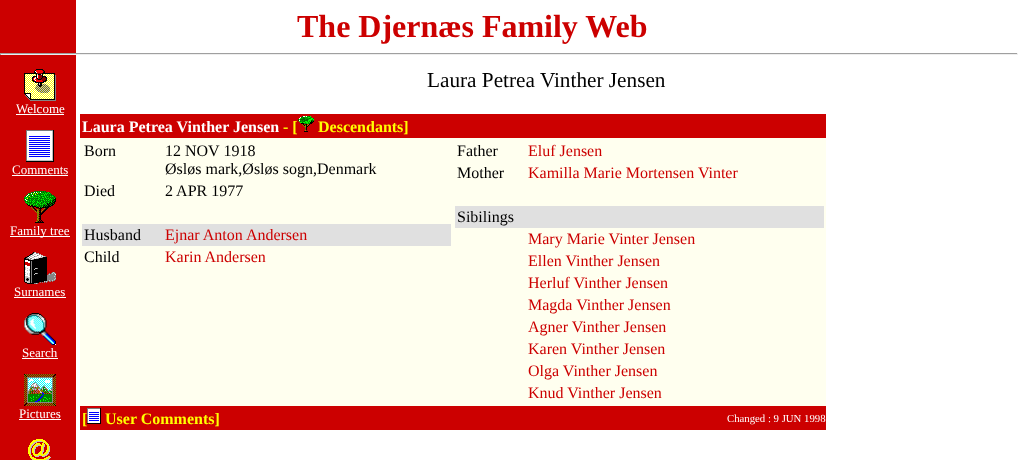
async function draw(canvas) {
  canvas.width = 1018
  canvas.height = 460
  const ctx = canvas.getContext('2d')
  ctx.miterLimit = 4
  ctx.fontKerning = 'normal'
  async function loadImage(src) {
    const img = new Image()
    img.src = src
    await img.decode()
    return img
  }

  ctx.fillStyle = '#fff'
  ctx.fillRect(0, 0, 1018, 460)
  ctx.fillStyle = '#c00'
  ctx.fillRect(0, 0, 76, 460)
  ctx.font = 'bold 32px Liberation Serif'
  ctx.fillText('The Djernæs Family Web', 297, 37)
  ctx.fillStyle = '#9f9f9f'
  ctx.fillRect(0, 53, 1018, 1)
  ctx.fillStyle = '#eee'
  ctx.fillRect(1017, 53, 1, 2)
  ctx.fillRect(0, 54, 1018, 1)
  ctx.fillStyle = '#9f9f9f'
  ctx.fillRect(0, 53, 1, 2)
  ctx.drawImage(await loadImage('image0.png'), 24, 69, 32, 32)
  ctx.font = '13px Liberation Serif'
  ctx.fillStyle = '#fff'
  ctx.fillText('Welcome', 16, 113)
  ctx.fillRect(16, 114, 48, 1)
  ctx.drawImage(await loadImage('image1.png'), 26, 130, 28, 32)
  ctx.fillText('Comments', 12, 174)
  ctx.fillRect(12, 175, 56, 1)
  ctx.drawImage(await loadImage('image2.png'), 24, 191, 32, 32)
  ctx.fillRect(10, 236, 60, 1)
  ctx.fillText('Family tree', 10, 235)
  ctx.drawImage(await loadImage('image3.png'), 24, 252, 32, 32)
  ctx.fillText('Surnames', 14, 296)
  ctx.fillRect(14, 297, 52, 1)
  ctx.drawImage(await loadImage('image4.png'), 24, 313, 32, 32)
  ctx.fillText('Search', 22, 357)
  ctx.fillRect(22, 358, 36, 1)
  ctx.drawImage(await loadImage('image5.png'), 24, 374, 32, 32)
  ctx.fillText('Pictures', 19, 418)
  ctx.fillRect(19, 419, 42, 1)
  ctx.drawImage(await loadImage('image6.png'), 28, 439, 23, 21)
  ctx.font = '21.25px Liberation Serif'
  ctx.fillStyle = '#000'
  ctx.fillText('Laura Petrea Vinther Jensen', 427, 87)
  ctx.fillStyle = '#ffffef'
  ctx.fillRect(80, 138, 746, 268)
  ctx.fillStyle = '#c00'
  ctx.fillRect(80, 114, 746, 24)
  ctx.font = 'bold 16px Liberation Serif'
  ctx.fillStyle = '#fff'
  ctx.fillText('Laura Petrea Vinther Jensen', 82, 132)
  ctx.fillStyle = '#ff0'
  ctx.fillText('- [', 283, 132)
  ctx.drawImage(await loadImage('image7.png'), 298, 116, 16, 16)
  ctx.fillText('Descendants]', 318, 132)
  ctx.font = '16px Liberation Serif'
  ctx.fillStyle = '#000'
  ctx.fillText('Born', 84, 156)
  ctx.fillText('12 NOV 1918', 165, 156)
  ctx.fillText('Øsløs mark,Øsløs sogn,Denmark', 165, 174)
  ctx.fillText('Died', 84, 196)
  ctx.fillText('2 APR 1977', 165, 196)
  ctx.fillStyle = '#e0e0e0'
  ctx.fillRect(82, 224, 369, 22)
  ctx.fillStyle = '#000'
  ctx.fillText('Husband', 84, 240)
  ctx.fillStyle = '#c00'
  ctx.fillText('Ejnar Anton Andersen', 165, 240)
  ctx.fillStyle = '#000'
  ctx.fillText('Child', 84, 262)
  ctx.fillStyle = '#c00'
  ctx.fillText('Karin Andersen', 165, 262)
  ctx.fillStyle = '#000'
  ctx.fillText('Father', 457, 156)
  ctx.fillStyle = '#c00'
  ctx.fillText('Eluf Jensen', 528, 156)
  ctx.fillStyle = '#000'
  ctx.fillText('Mother', 457, 178)
  ctx.fillStyle = '#c00'
  ctx.fillText('Kamilla Marie Mortensen Vinter', 528, 178)
  ctx.fillStyle = '#e0e0e0'
  ctx.fillRect(455, 206, 369, 22)
  ctx.fillStyle = '#000'
  ctx.fillText('Sibilings', 457, 222)
  ctx.fillStyle = '#c00'
  ctx.fillText('Mary Marie Vinter Jensen', 528, 244)
  ctx.fillText('Ellen Vinther Jensen', 528, 266)
  ctx.fillText('Herluf Vinther Jensen', 528, 288)
  ctx.fillText('Magda Vinther Jensen', 528, 310)
  ctx.fillText('Agner Vinther Jensen', 528, 332)
  ctx.fillText('Karen Vinther Jensen', 528, 354)
  ctx.fillText('Olga Vinther Jensen', 528, 376)
  ctx.fillText('Knud Vinther Jensen', 528, 398)
  ctx.fillRect(80, 406, 746, 24)
  ctx.font = 'bold 16px Liberation Serif'
  ctx.fillStyle = '#ff0'
  ctx.fillText('[', 82, 424)
  ctx.drawImage(await loadImage('image8.png'), 87, 408, 14, 16)
  ctx.fillText('User Comments]', 105, 424)
  ctx.font = '10.75px Liberation Serif'
  ctx.fillStyle = '#fff'
  ctx.fillText('Changed : 9 JUN 1998', 727, 422)
}

draw(document.querySelector('canvas'))
